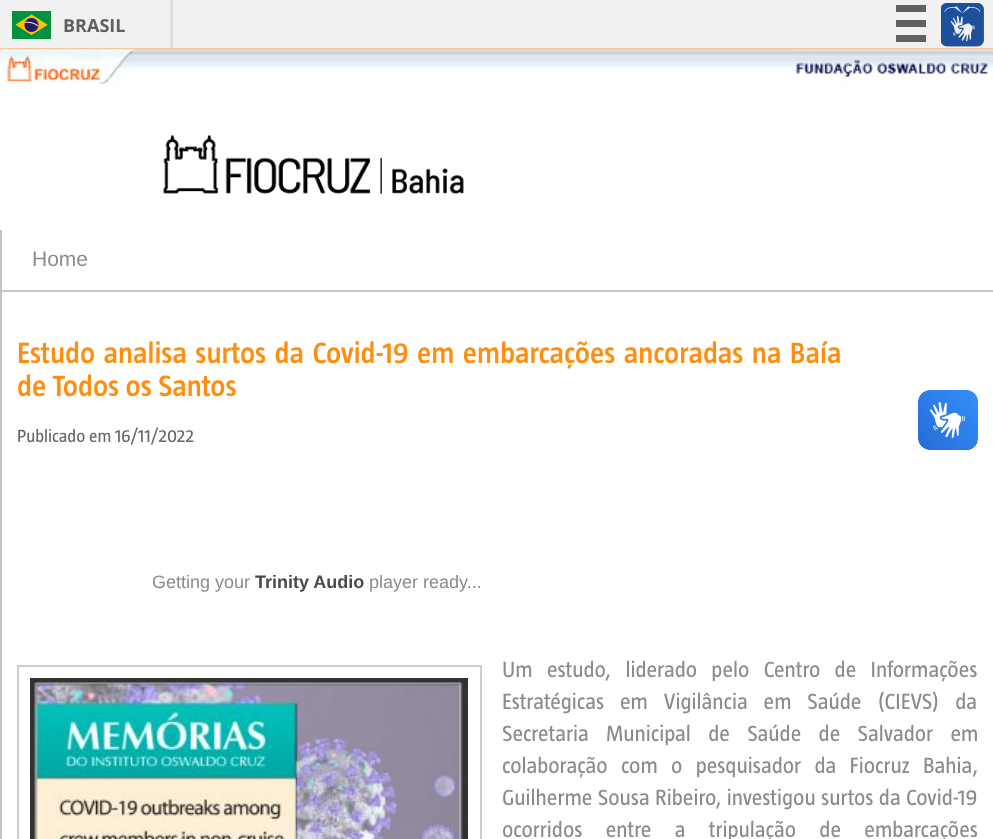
async function draw(canvas) {
  canvas.width = 993
  canvas.height = 839
  const ctx = canvas.getContext('2d')
  ctx.miterLimit = 4
  ctx.fontKerning = 'normal'
  async function loadImage(src) {
    const img = new Image()
    img.src = src
    await img.decode()
    return img
  }

  ctx.fillStyle = '#fff'
  ctx.fillRect(0, 0, 993, 839)
  ctx.fillStyle = '#f1f1f1'
  ctx.fillRect(0, 0, 993, 48)
  ctx.fillStyle = '#f8c690'
  ctx.fillRect(0, 48, 993, 2)
  ctx.fillStyle = '#dfdfdf'
  ctx.fillRect(170, 0, 3, 48)
  ctx.drawImage(await loadImage('image0.png'), 12, 11, 39, 28)
  ctx.font = 'bold 18px Open Sans'
  ctx.fillStyle = '#606060'
  ctx.fillText('BRASIL', 63, 32)
  ctx.fillRect(896, 5, 30, 7)
  ctx.fillRect(896, 20, 30, 7)
  ctx.fillRect(896, 35, 30, 7)
  ctx.drawImage(await loadImage('image1.png'), 941, 3, 43, 44)
  ctx.drawImage(await loadImage('image2.png'), 0, 49, 993, 20)
  ctx.drawImage(await loadImage('image3.png'), 0, 49, 135, 35)
  ctx.drawImage(await loadImage('image4.png'), 792, 49, 201, 35)
  ctx.drawImage(await loadImage('image5.png'), 163, 135, 301, 59)
  ctx.fillStyle = '#c3c3c3'
  ctx.fillRect(0, 230, 2, 609)
  ctx.fillStyle = '#c8c8c8'
  ctx.fillRect(2, 290, 991, 2)
  ctx.font = '21px Liberation Sans'
  ctx.fillStyle = '#8b8b8b'
  ctx.fillText('Home', 32, 266)
  ctx.wordSpacing = '2px'
  ctx.font = '600 30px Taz'
  ctx.fillStyle = '#ff8e10'
  ctx.fillText('Estudo analisa surtos da Covid-19 em embarcações ancoradas na Baía', 17, 363)
  ctx.wordSpacing = '0px'
  ctx.fillText('de Todos os Santos', 17, 396)
  ctx.font = '18px Taz'
  ctx.fillStyle = '#666'
  ctx.fillText('Publicado em', 17, 442)
  ctx.fillText('16/11/2022', 115, 442)
  ctx.font = '18px Liberation Sans'
  ctx.fillStyle = '#8b8b8b'
  ctx.fillText('Getting your', 152, 588)
  ctx.font = 'bold 18px Liberation Sans'
  ctx.fillStyle = '#4b4a4a'
  ctx.fillText('Trinity Audio', 255, 588)
  ctx.font = '18px Liberation Sans'
  ctx.fillStyle = '#8b8b8b'
  ctx.fillText('player ready...', 369, 588)
  ctx.strokeStyle = '#ccc'
  ctx.lineWidth = 2
  ctx.strokeRect(18, 666, 463, 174)
  ctx.drawImage(await loadImage('image6.png'), 30, 678, 438, 161)
  ctx.wordSpacing = '9.5px'
  ctx.font = '22.5px Taz'
  ctx.fillText('Um estudo, liderado pelo Centro de Informações', 502, 677)
  ctx.wordSpacing = '11px'
  ctx.fillText('Estratégicas em Vigilância em Saúde (CIEVS) da', 502, 709)
  ctx.wordSpacing = '12.5px'
  ctx.fillText('Secretaria Municipal de Saúde de Salvador em', 502, 741)
  ctx.wordSpacing = '8.5px'
  ctx.fillText('colaboração com o pesquisador da Fiocruz Bahia,', 502, 773)
  ctx.wordSpacing = '0.5px'
  ctx.fillText('Guilherme Sousa Ribeiro, investigou surtos da Covid-19', 502, 805)
  ctx.wordSpacing = '18.5px'
  ctx.fillText('ocorridos entre a tripulação de embarcações', 502, 837)
  ctx.drawImage(await loadImage('image7.png'), 918, 390, 60, 60)
  ctx.drawImage(await loadImage('image8.png'), 918, 390, 60, 60)
}

draw(document.querySelector('canvas'))
